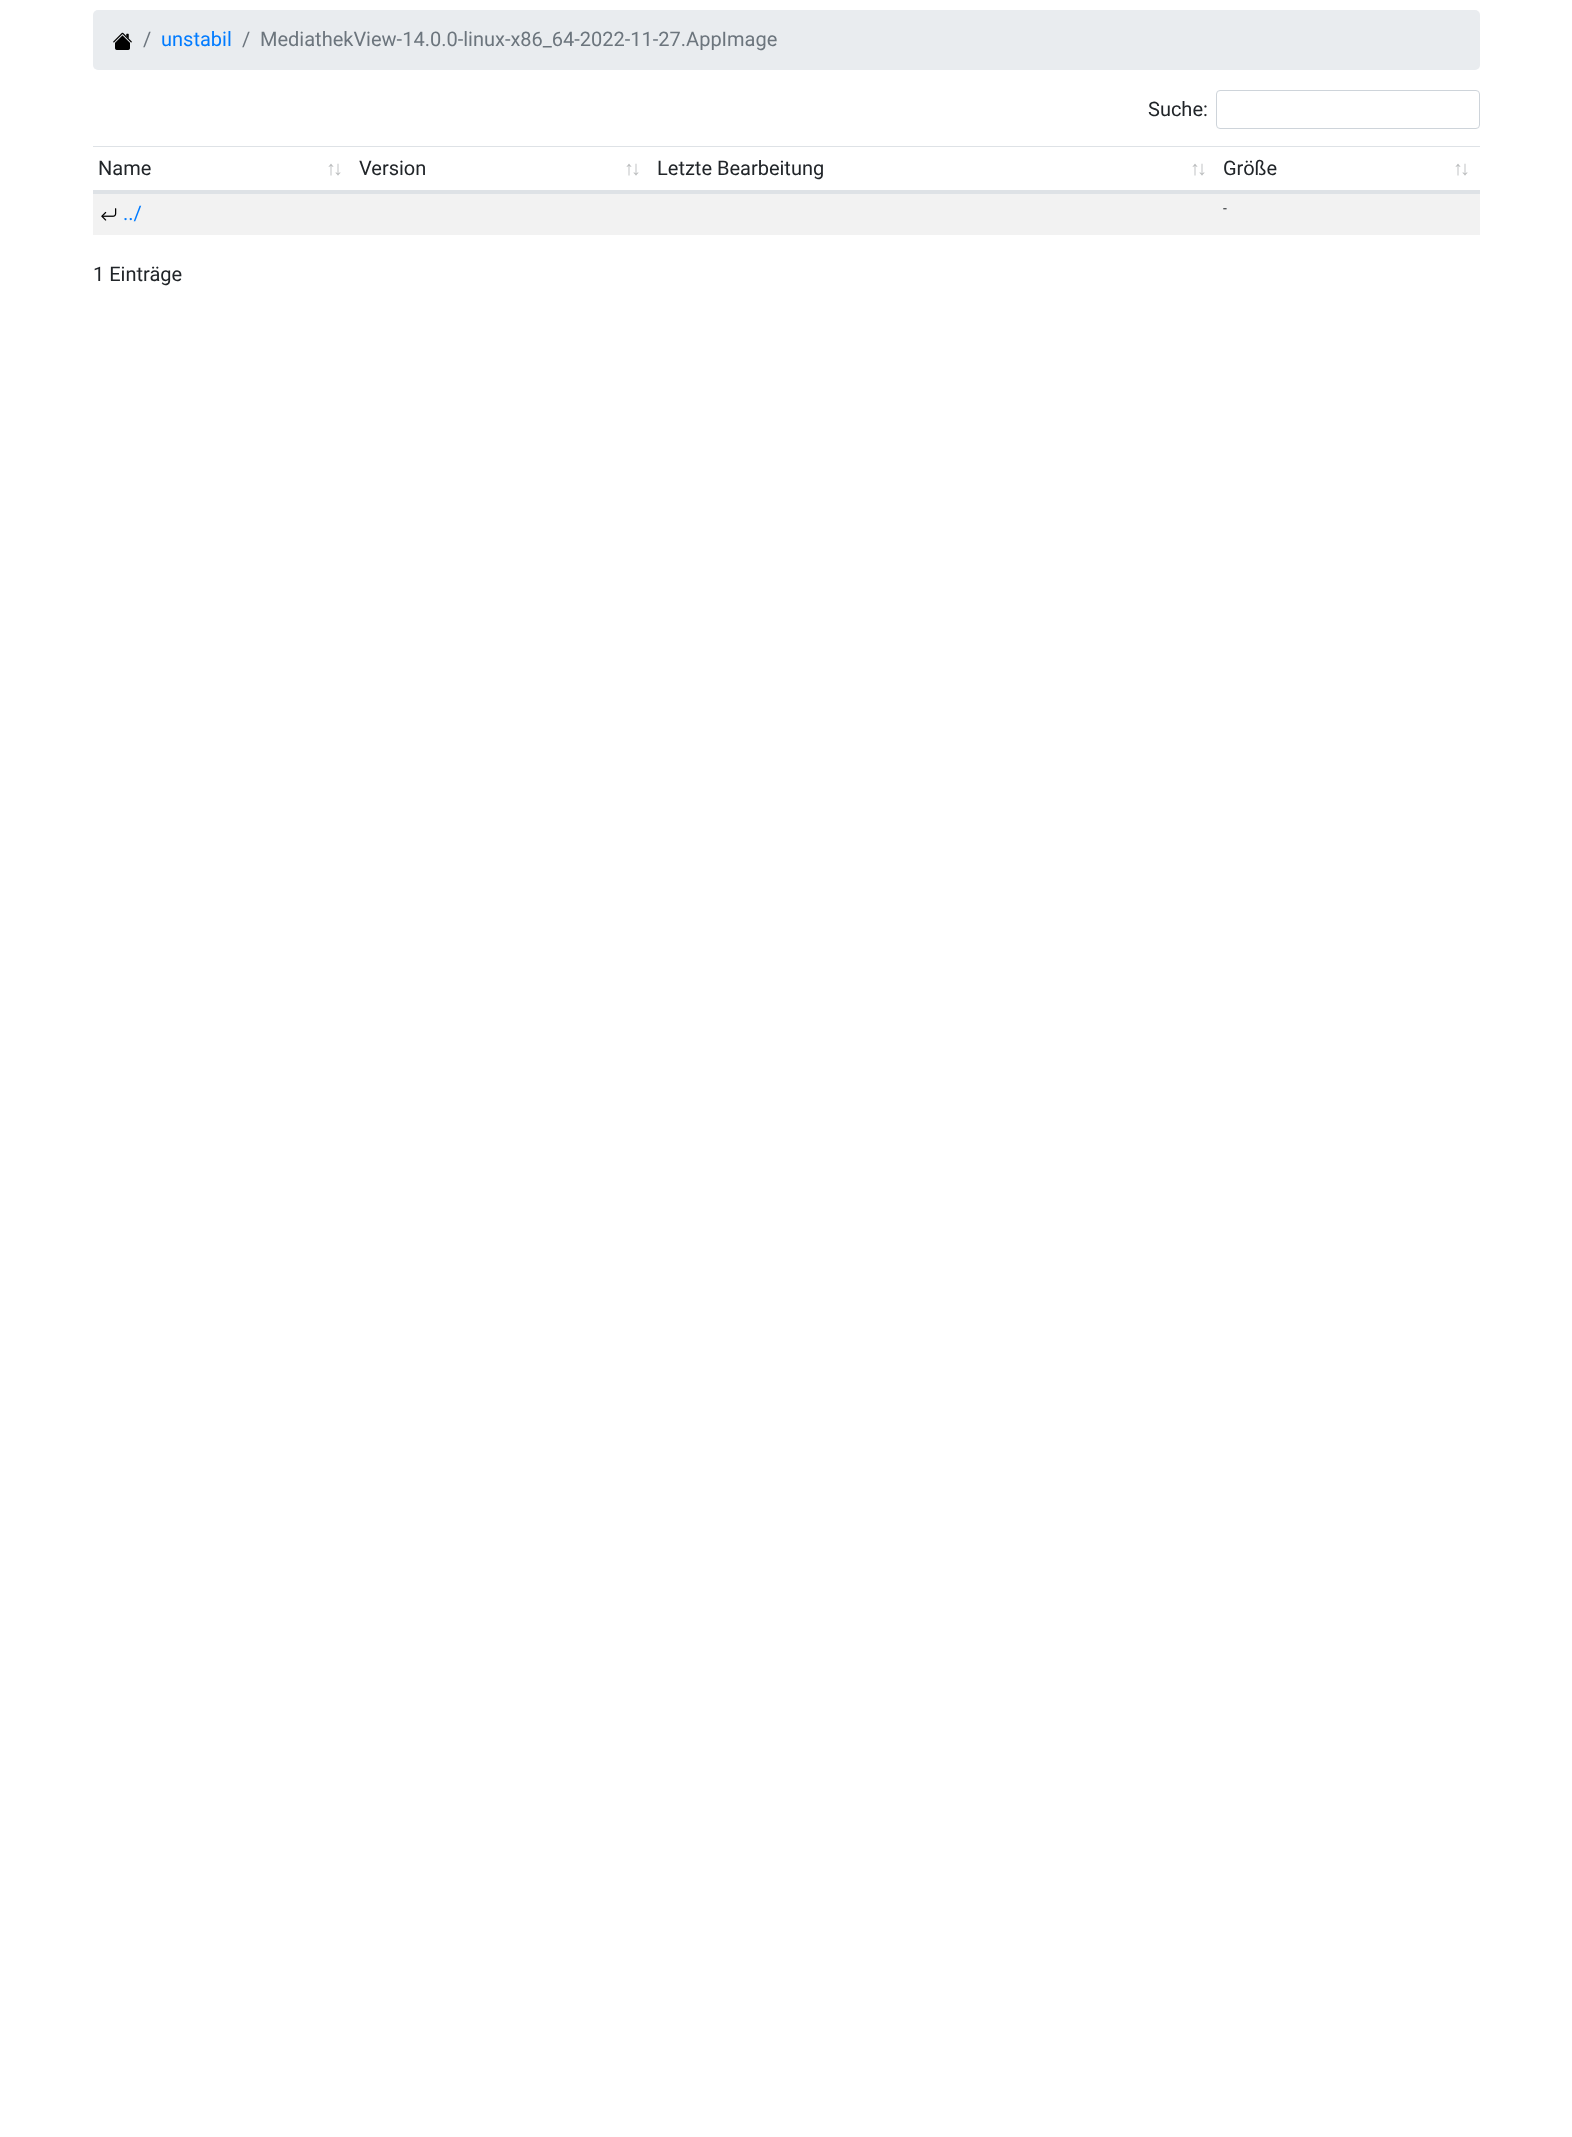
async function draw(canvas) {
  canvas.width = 1572
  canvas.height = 2137
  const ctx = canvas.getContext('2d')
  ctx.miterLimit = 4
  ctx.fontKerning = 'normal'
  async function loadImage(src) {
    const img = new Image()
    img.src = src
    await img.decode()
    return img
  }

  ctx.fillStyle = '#fff'
  ctx.fillRect(0, 0, 1572, 2137)
  ctx.fillStyle = '#e9ecef'
  ctx.beginPath()
  ctx.roundRect(93, 10, 1387, 60, 5)
  ctx.fill()
  ctx.drawImage(await loadImage('image0.png'), 113, 32, 19, 18)
  ctx.font = '20px Roboto'
  ctx.fillStyle = '#6c757d'
  ctx.fillText('/', 143, 46)
  ctx.fillStyle = '#007bff'
  ctx.fillText('unstabil', 161, 46)
  ctx.fillStyle = '#6c757d'
  ctx.fillText('/', 242, 46)
  ctx.fillText('MediathekView-14.0.0-linux-x86_64-2022-11-27.AppImage', 260, 46)
  ctx.fillStyle = '#212529'
  ctx.fillText('Suche:', 1148, 116)
  ctx.beginPath()
  ctx.roundRect(1216.5, 90.5, 263, 38, 3.5)
  ctx.strokeStyle = '#ced4da'
  ctx.stroke()
  ctx.fillStyle = '#dee2e6'
  ctx.fillRect(93, 146, 1387, 1)
  ctx.fillRect(93, 190, 1387, 3)
  ctx.fillStyle = '#212529'
  ctx.fillText('Name', 98, 175)
  ctx.font = 'bold 20px Liberation Sans'
  ctx.fillStyle = '#bcbebf'
  ctx.fillText('↑', 326, 175)
  ctx.fillText('↓', 333, 175)
  ctx.font = '20px Roboto'
  ctx.fillStyle = '#212529'
  ctx.fillText('Version', 359, 175)
  ctx.font = 'bold 20px Liberation Sans'
  ctx.fillStyle = '#bcbebf'
  ctx.fillText('↑', 624, 175)
  ctx.fillText('↓', 631, 175)
  ctx.font = '20px Roboto'
  ctx.fillStyle = '#212529'
  ctx.fillText('Letzte Bearbeitung', 657, 175)
  ctx.font = 'bold 20px Liberation Sans'
  ctx.fillStyle = '#bcbebf'
  ctx.fillText('↑', 1190, 175)
  ctx.fillText('↓', 1197, 175)
  ctx.font = '20px Roboto'
  ctx.fillStyle = '#212529'
  ctx.fillText('Größe', 1223, 175)
  ctx.font = 'bold 20px Liberation Sans'
  ctx.fillStyle = '#bcbebf'
  ctx.fillText('↑', 1453, 175)
  ctx.fillText('↓', 1460, 175)
  ctx.fillStyle = '#f2f2f2'
  ctx.fillRect(93, 194, 1387, 41)
  ctx.fillStyle = '#dee2e6'
  ctx.fillRect(93, 193, 1387, 1)
  ctx.drawImage(await loadImage('image1.png'), 101, 208, 16, 13)
  ctx.font = '20px Roboto'
  ctx.fillStyle = '#007bff'
  ctx.fillText('../', 123, 220)
  ctx.font = '14px Roboto'
  ctx.fillStyle = '#212529'
  ctx.fillText('-', 1223, 213)
  ctx.font = '20px Roboto'
  ctx.fillText('1 Einträge', 93, 281)
}

draw(document.querySelector('canvas'))
